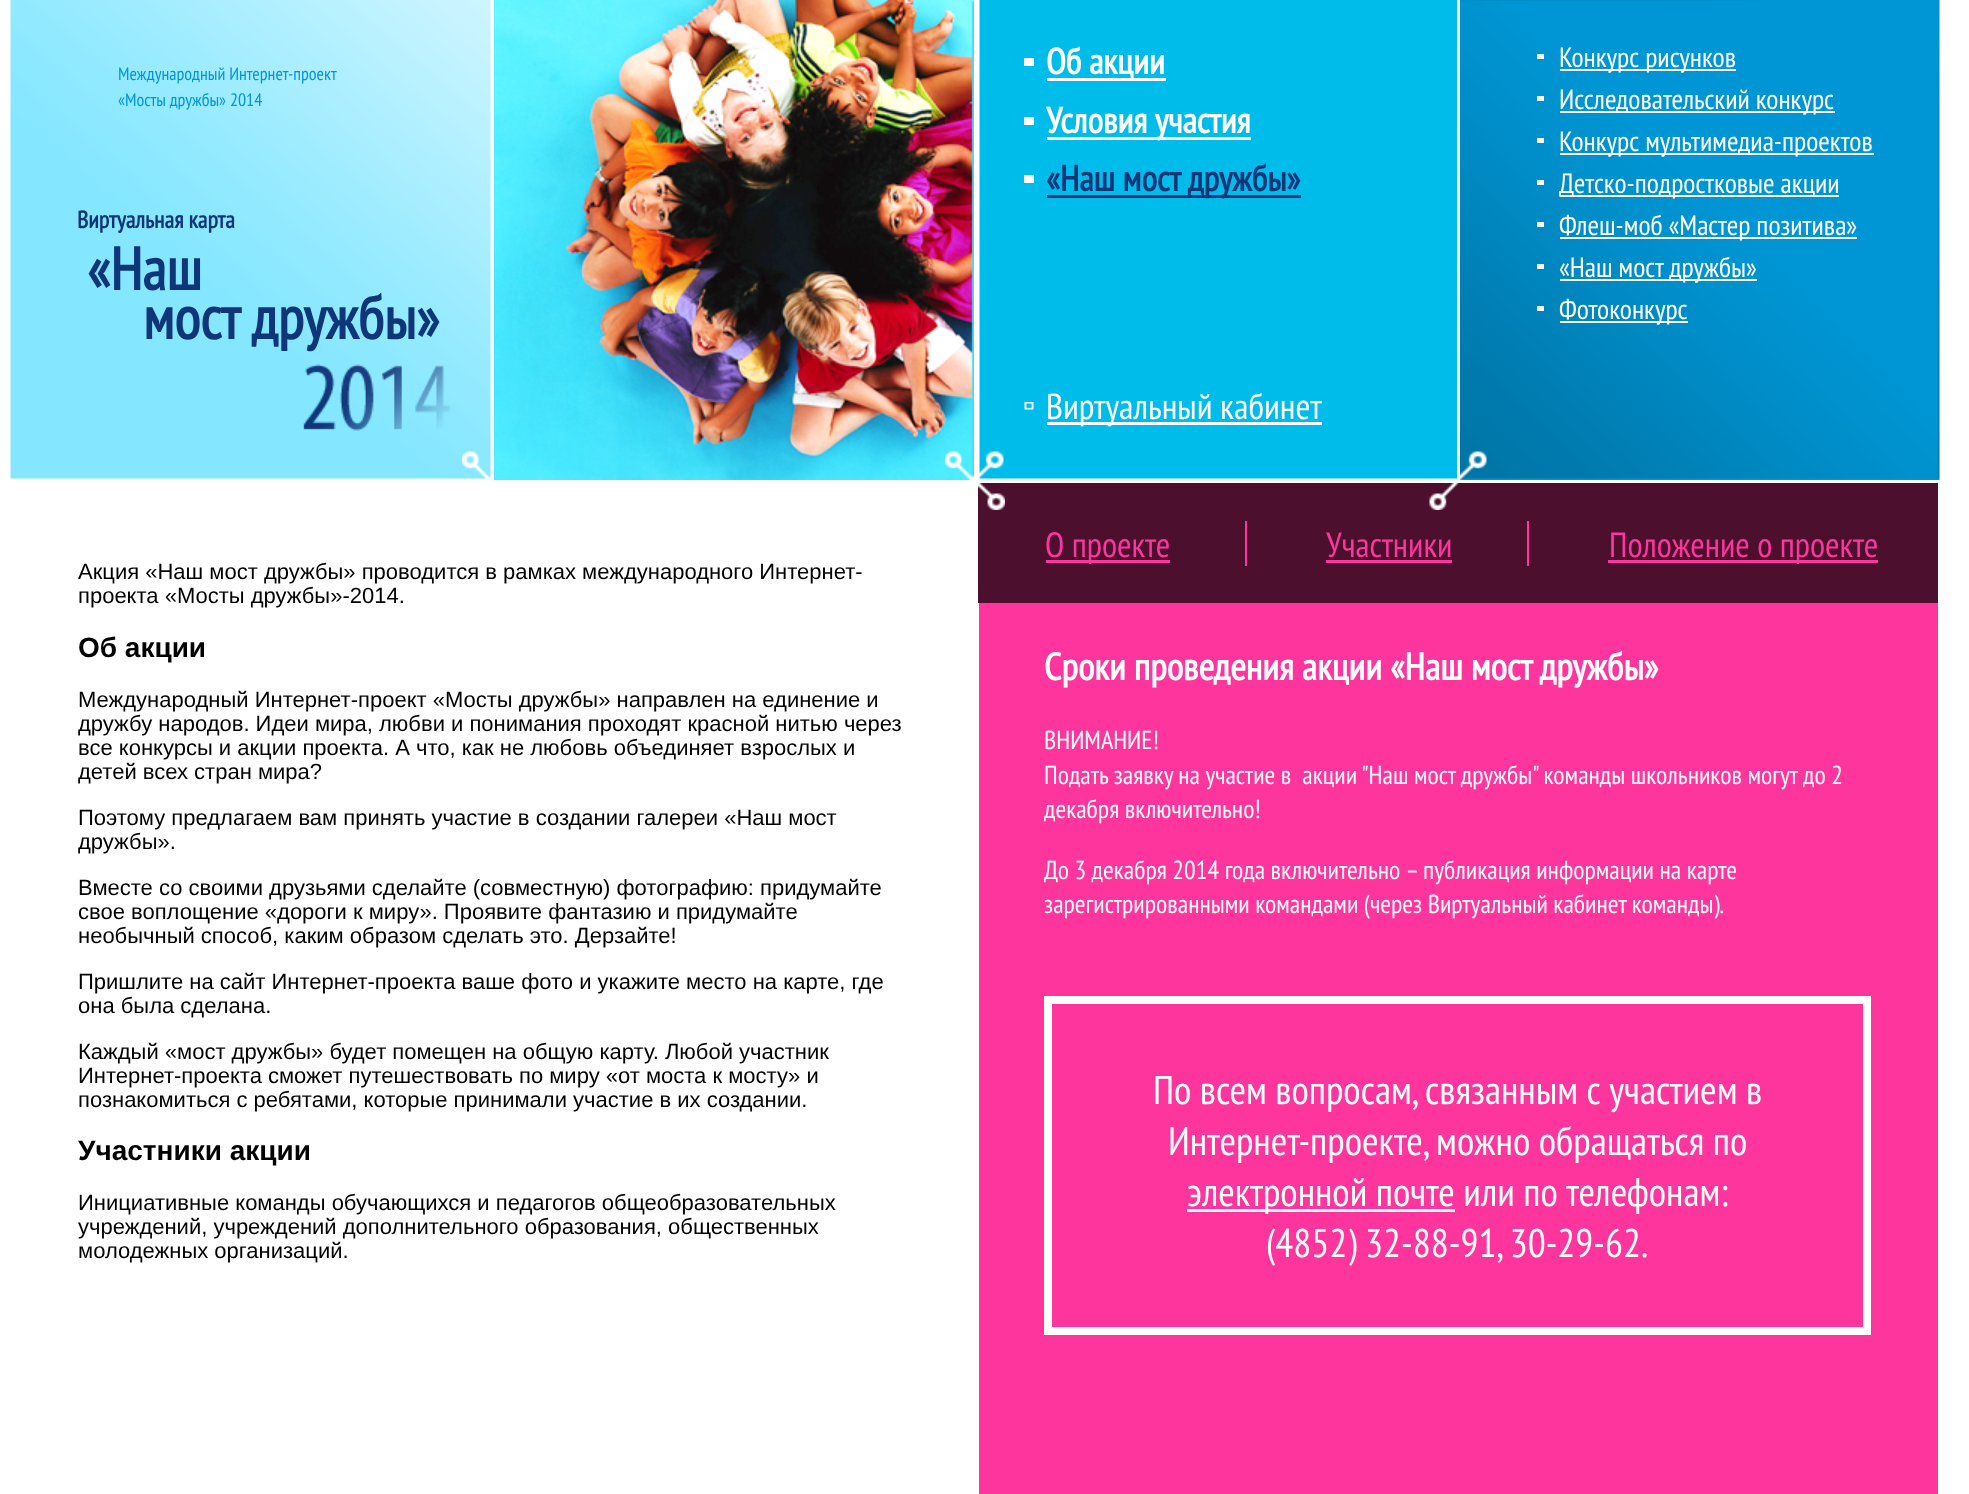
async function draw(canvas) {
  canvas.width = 1969
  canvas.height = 1494
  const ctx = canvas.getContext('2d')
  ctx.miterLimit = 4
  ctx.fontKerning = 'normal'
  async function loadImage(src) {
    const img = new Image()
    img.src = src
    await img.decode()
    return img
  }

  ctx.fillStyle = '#fff'
  ctx.fillRect(0, 0, 1969, 1494)
  ctx.drawImage(await loadImage('image0.png'), 10, 0, 481, 479)
  ctx.font = '18px PT Sans Narrow'
  ctx.fillStyle = '#0096d5'
  ctx.fillText('Международный Интернет-проект', 118, 80)
  ctx.fillText('«Мосты дружбы» 2014', 118, 106)
  ctx.font = 'bold 24px PT Sans Narrow'
  ctx.fillStyle = '#10367a'
  ctx.fillText('Виртуальная карта', 77, 228)
  ctx.font = 'bold 60px PT Sans Narrow'
  ctx.fillText('«Наш', 87, 290)
  ctx.fillText('мост дружбы»', 143, 339)
  ctx.fillStyle = '#42ddf9'
  ctx.fillRect(496, 1, 478, 479)
  ctx.drawImage(await loadImage('image1.png'), 494, 0, 480, 480)
  ctx.drawImage(await loadImage('image2.png'), 979, 0, 478, 479)
  ctx.fillStyle = '#fff'
  ctx.fillRect(1024, 58, 10, 8)
  ctx.fillRect(1047, 78, 119, 3)
  ctx.font = 'bold 36px PT Sans Narrow'
  ctx.fillText('Об акции', 1046, 74)
  ctx.fillRect(1024, 117, 10, 8)
  ctx.fillRect(1047, 137, 204, 3)
  ctx.fillText('Условия участия', 1046, 133)
  ctx.fillRect(1024, 175, 10, 8)
  ctx.fillStyle = '#10367a'
  ctx.fillRect(1047, 195, 254, 3)
  ctx.fillText('«Наш мост дружбы»', 1046, 191)
  ctx.drawImage(await loadImage('image3.png'), 1024, 402, 10, 8)
  ctx.fillStyle = '#fff'
  ctx.fillRect(1047, 422, 275, 3)
  ctx.font = '36px PT Sans Narrow'
  ctx.fillText('Виртуальный кабинет', 1046, 419)
  ctx.drawImage(await loadImage('image4.png'), 1460, 0, 480, 480)
  ctx.fillRect(1537, 54, 7, 5)
  ctx.fillRect(1560, 69, 176, 2)
  ctx.font = '28px PT Sans Narrow'
  ctx.fillText('Конкурс рисунков', 1559, 67)
  ctx.fillRect(1537, 96, 7, 5)
  ctx.fillRect(1560, 111, 275, 2)
  ctx.fillText('Исследовательский конкурс', 1559, 109)
  ctx.fillRect(1537, 138, 7, 5)
  ctx.fillRect(1560, 153, 314, 2)
  ctx.fillText('Конкурс мультимедиа-проектов', 1559, 151)
  ctx.fillRect(1537, 180, 7, 5)
  ctx.fillRect(1560, 195, 279, 2)
  ctx.fillText('Детско-подростковые акции', 1559, 193)
  ctx.fillRect(1537, 222, 7, 5)
  ctx.fillRect(1560, 237, 297, 2)
  ctx.fillText('Флеш-моб «Мастер позитива»', 1559, 235)
  ctx.fillRect(1537, 264, 7, 5)
  ctx.fillRect(1560, 279, 197, 2)
  ctx.fillText('«Наш мост дружбы»', 1559, 277)
  ctx.fillRect(1537, 306, 7, 5)
  ctx.fillRect(1560, 321, 128, 2)
  ctx.fillText('Фотоконкурс', 1559, 319)
  ctx.font = '22px Liberation Sans'
  ctx.fillStyle = '#000'
  ctx.fillText('Акция «Наш мост дружбы» проводится в рамках международного Интернет-', 78, 579)
  ctx.fillText('проекта «Мосты дружбы»-2014.', 78, 603)
  ctx.font = 'bold 28px Liberation Sans'
  ctx.fillText('Об акции', 78, 657)
  ctx.font = '22px Liberation Sans'
  ctx.fillText('Международный Интернет-проект «Мосты дружбы» направлен на единение и', 78, 707)
  ctx.fillText('дружбу народов. Идеи мира, любви и понимания проходят красной нитью через', 78, 731)
  ctx.fillText('все конкурсы и акции проекта. А что, как не любовь объединяет взрослых и', 78, 755)
  ctx.fillText('детей всех стран мира?', 78, 779)
  ctx.fillText('Поэтому предлагаем вам принять участие в создании галереи «Наш мост', 78, 825)
  ctx.fillText('дружбы».', 78, 849)
  ctx.fillText('Вместе со своими друзьями сделайте (совместную) фотографию: придумайте', 78, 895)
  ctx.fillText('свое воплощение «дороги к миру». Проявите фантазию и придумайте', 78, 919)
  ctx.fillText('необычный способ, каким образом сделать это. Дерзайте!', 78, 943)
  ctx.fillText('Пришлите на сайт Интернет-проекта ваше фото и укажите место на карте, где', 78, 989)
  ctx.fillText('она была сделана.', 78, 1013)
  ctx.fillText('Каждый «мост дружбы» будет помещен на общую карту. Любой участник', 78, 1059)
  ctx.fillText('Интернет-проекта сможет путешествовать по миру «от моста к мосту» и', 78, 1083)
  ctx.fillText('познакомиться с ребятами, которые принимали участие в их создании.', 78, 1107)
  ctx.font = 'bold 28px Liberation Sans'
  ctx.fillText('Участники акции', 78, 1160)
  ctx.font = '22px Liberation Sans'
  ctx.fillText('Инициативные команды обучающихся и педагогов общеобразовательных', 78, 1210)
  ctx.fillText('учреждений, учреждений дополнительного образования, общественных', 78, 1234)
  ctx.fillText('молодежных организаций.', 78, 1258)
  ctx.fillStyle = '#fe359c'
  ctx.fillRect(979, 603, 959, 891)
  ctx.fillStyle = '#4c102e'
  ctx.fillRect(978, 483, 960, 120)
  ctx.drawImage(await loadImage('image5.png'), 978, 483, 481, 27)
  ctx.fillStyle = '#fe359c'
  ctx.fillRect(1046, 560, 124, 3)
  ctx.font = '35px PT Sans Narrow'
  ctx.fillText('О проекте', 1045, 557)
  ctx.fillRect(1245, 521, 2, 45)
  ctx.fillText('Участники', 1326, 557)
  ctx.fillRect(1527, 521, 2, 45)
  ctx.fillRect(1326, 560, 126, 3)
  ctx.fillRect(1608, 560, 270, 3)
  ctx.fillText('Положение о проекте', 1609, 557)
  ctx.font = 'bold 38px PT Sans Narrow'
  ctx.fillStyle = '#fff'
  ctx.fillText('Сроки проведения акции «Наш мост дружбы»', 1044, 680)
  ctx.font = '26px PT Sans Narrow'
  ctx.fillText('ВНИМАНИЕ!', 1044, 749)
  ctx.fillText('Подать заявку на участие в  акции "Наш мост дружбы" команды школьников могут до 2', 1044, 784)
  ctx.fillText('декабря включительно!', 1044, 818)
  ctx.fillText('До 3 декабря 2014 года включительно – публикация информации на карте', 1044, 879)
  ctx.fillText('зарегистрированными командами (через Виртуальный кабинет команды).', 1044, 913)
  ctx.strokeStyle = '#fff'
  ctx.lineWidth = 8
  ctx.strokeRect(1048, 1000, 819, 331)
  ctx.font = '40px PT Sans Narrow'
  ctx.fillText('По всем вопросам, связанным с участием в', 1153, 1104)
  ctx.fillText('Интернет-проекте, можно обращаться по', 1168, 1155)
  ctx.fillRect(1187, 1209, 268, 3)
  ctx.fillText('электронной почте или по телефонам:', 1187, 1206)
  ctx.fillText('(4852) 32-88-91, 30-29-62.', 1266, 1257)
}

draw(document.querySelector('canvas'))
